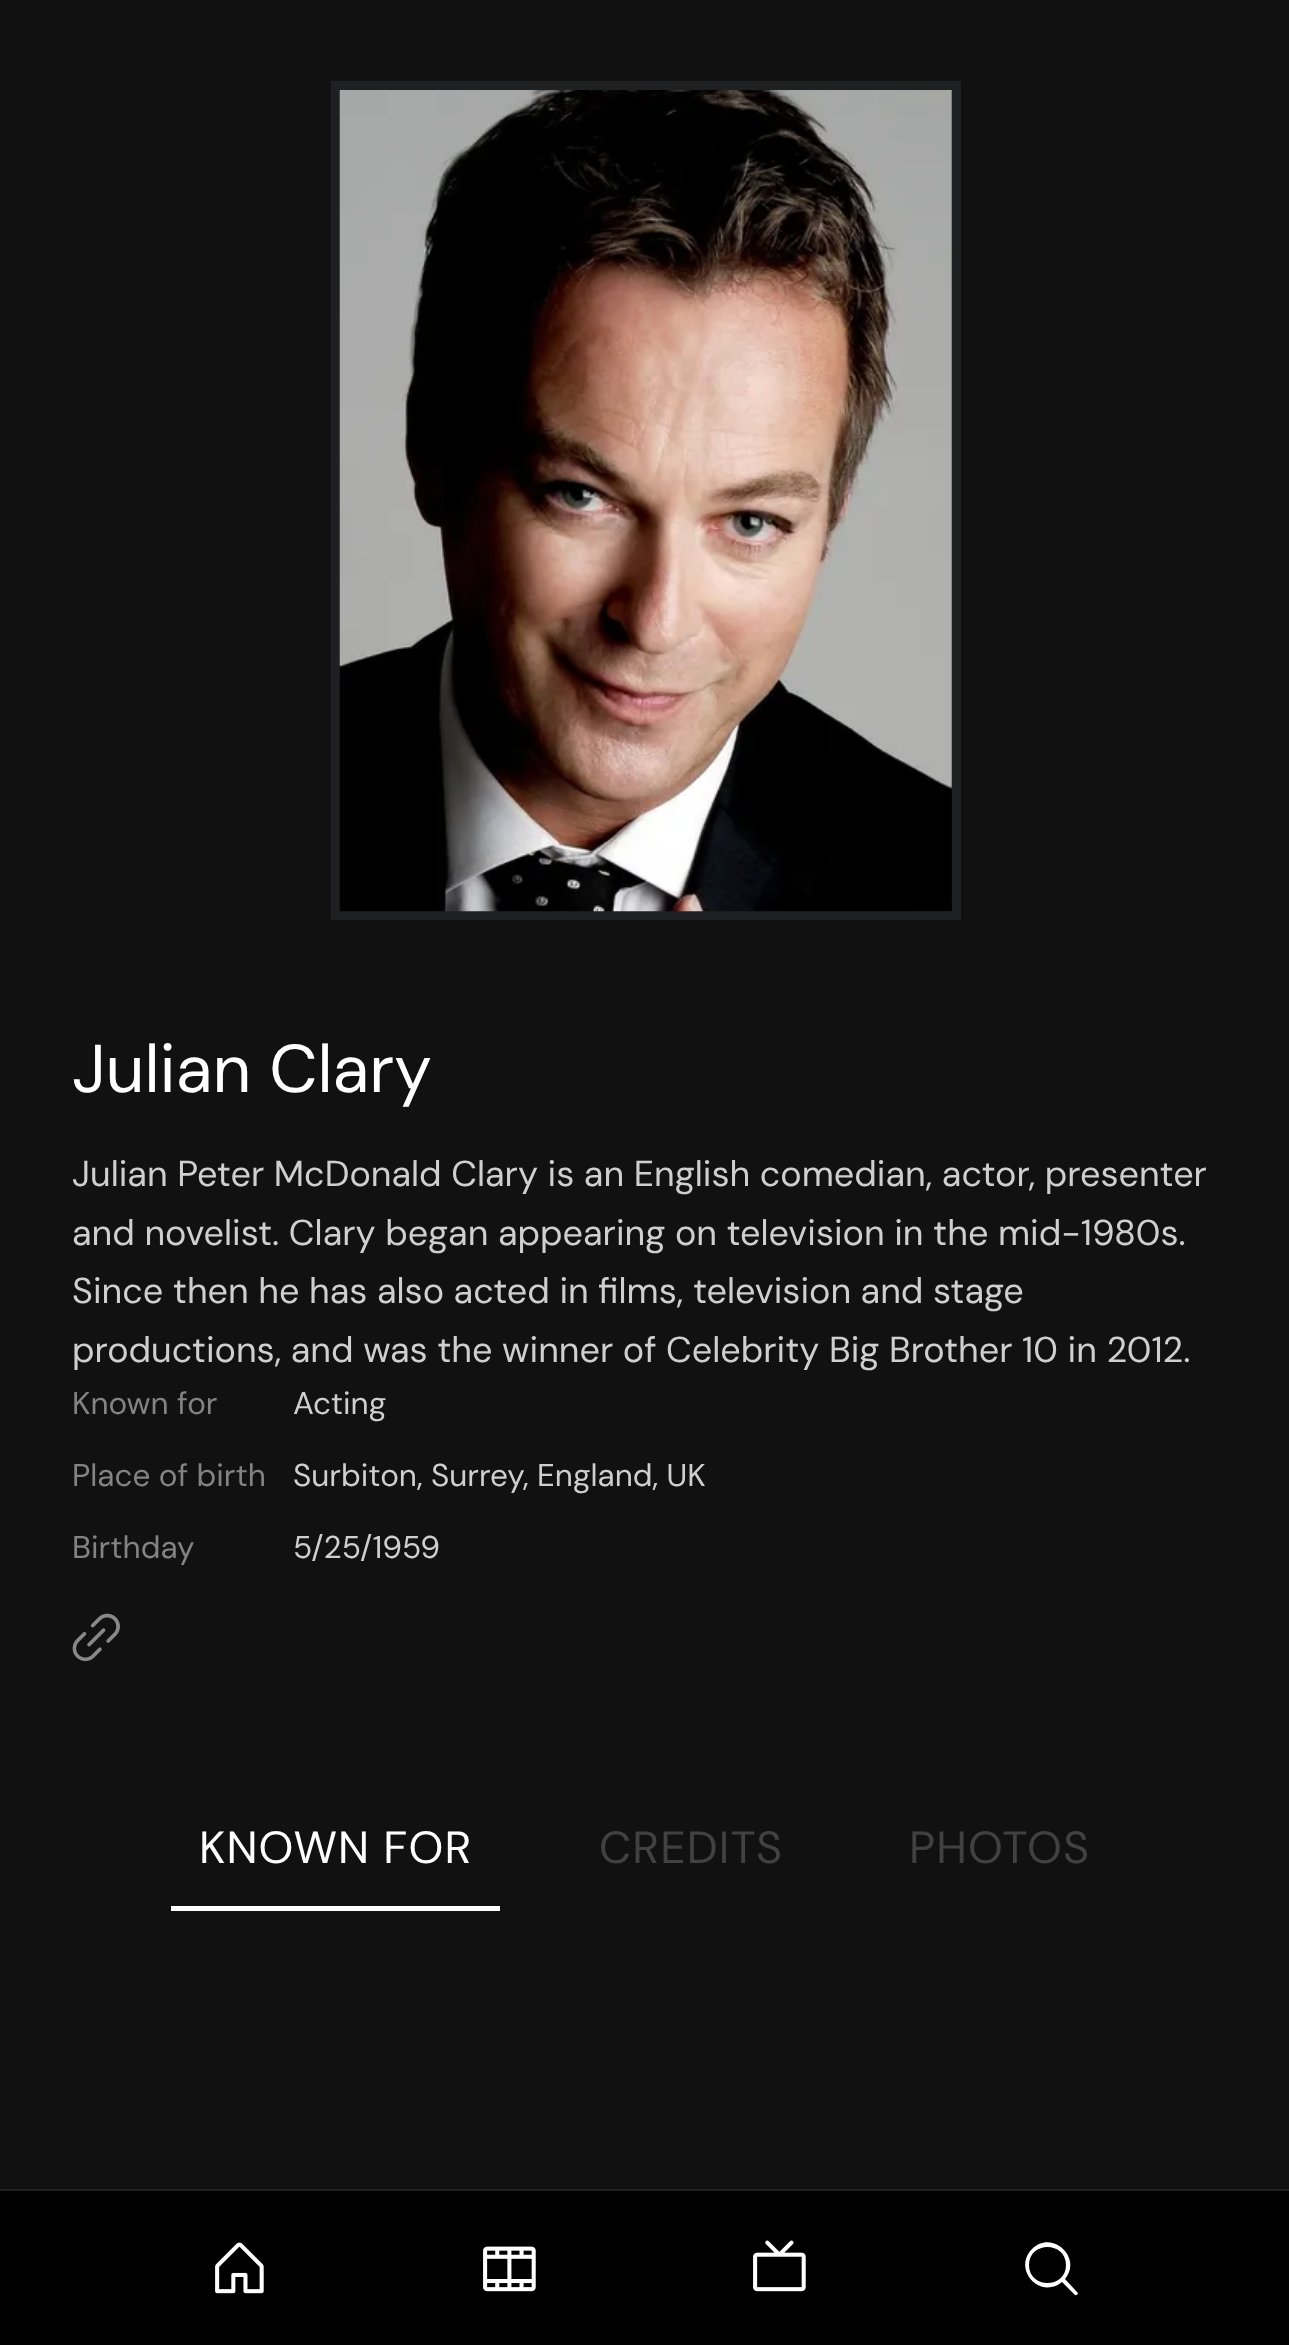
async function draw(canvas) {
  canvas.width = 1289
  canvas.height = 2345
  const ctx = canvas.getContext('2d')
  ctx.miterLimit = 4
  ctx.fontKerning = 'normal'
  async function loadImage(src) {
    const img = new Image()
    img.src = src
    await img.decode()
    return img
  }

  ctx.fillStyle = '#111'
  ctx.fillRect(0, 0, 1289, 2345)
  ctx.strokeStyle = '#1f2021'
  ctx.lineWidth = 9
  ctx.strokeRect(335.5, 85.5, 621, 830)
  ctx.drawImage(await loadImage('image0.png'), 339, 90, 613, 822)
  ctx.font = '67.5px DM Sans'
  ctx.fillStyle = '#fff'
  ctx.fillText('Julian Clary', 72, 1092)
  ctx.font = '36px DM Sans'
  ctx.fillStyle = '#cfcfcf'
  ctx.fillText('Julian Peter McDonald Clary is an English comedian, actor, presenter', 72, 1186)
  ctx.fillText('and novelist. Clary began appearing on television in the mid-1980s.', 72, 1245)
  ctx.fillText('Since then he has also acted in films, television and stage', 72, 1303)
  ctx.fillText('productions, and was the winner of Celebrity Big Brother 10 in 2012.', 72, 1362)
  ctx.font = '31.5px DM Sans'
  ctx.fillStyle = '#838383'
  ctx.fillText('Known for', 72, 1414)
  ctx.fillStyle = '#cfcfcf'
  ctx.fillText('Acting', 293, 1414)
  ctx.fillStyle = '#838383'
  ctx.fillText('Place of birth', 72, 1486)
  ctx.fillStyle = '#cfcfcf'
  ctx.fillText('Surbiton, Surrey, England, UK', 293, 1486)
  ctx.fillStyle = '#838383'
  ctx.fillText('Birthday', 72, 1558)
  ctx.fillStyle = '#cfcfcf'
  ctx.fillText('5/25/1959', 293, 1558)
  ctx.drawImage(await loadImage('image1.png'), 72, 1613, 48, 49)
  ctx.fillStyle = '#fff'
  ctx.fillRect(171, 1906, 329, 5)
  ctx.letterSpacing = '1.1px'
  ctx.font = '45px DM Sans'
  ctx.fillText('KNOWN FOR', 199, 1863)
  ctx.fillStyle = '#414141'
  ctx.fillText('CREDITS', 599, 1863)
  ctx.fillText('PHOTOS', 909, 1863)
  ctx.fillStyle = '#000'
  ctx.fillRect(0, 2191, 1289, 154)
  ctx.fillStyle = '#1f2123'
  ctx.fillRect(0, 2189, 1289, 2)
  ctx.drawImage(await loadImage('image2.png'), 215, 2242, 49, 52)
  ctx.drawImage(await loadImage('image3.png'), 483, 2246, 53, 46)
  ctx.drawImage(await loadImage('image4.png'), 753, 2240, 53, 52)
  ctx.fillStyle = '#fff'
  ctx.beginPath()
  ctx.moveTo(1077, 2292)
  ctx.lineTo(1065, 2279)
  ctx.bezierCurveTo(1083, 2258, 1052, 2229, 1032, 2249)
  ctx.bezierCurveTo(1012, 2269, 1040, 2300, 1062, 2282)
  ctx.lineTo(1075, 2295)
  ctx.bezierCurveTo(1077, 2296, 1079, 2293, 1077, 2292)
  ctx.moveTo(1029, 2265)
  ctx.bezierCurveTo(1029, 2241, 1066, 2241, 1066, 2265)
  ctx.bezierCurveTo(1066, 2289, 1029, 2289, 1029, 2265)
  ctx.fill()
}

draw(document.querySelector('canvas'))
